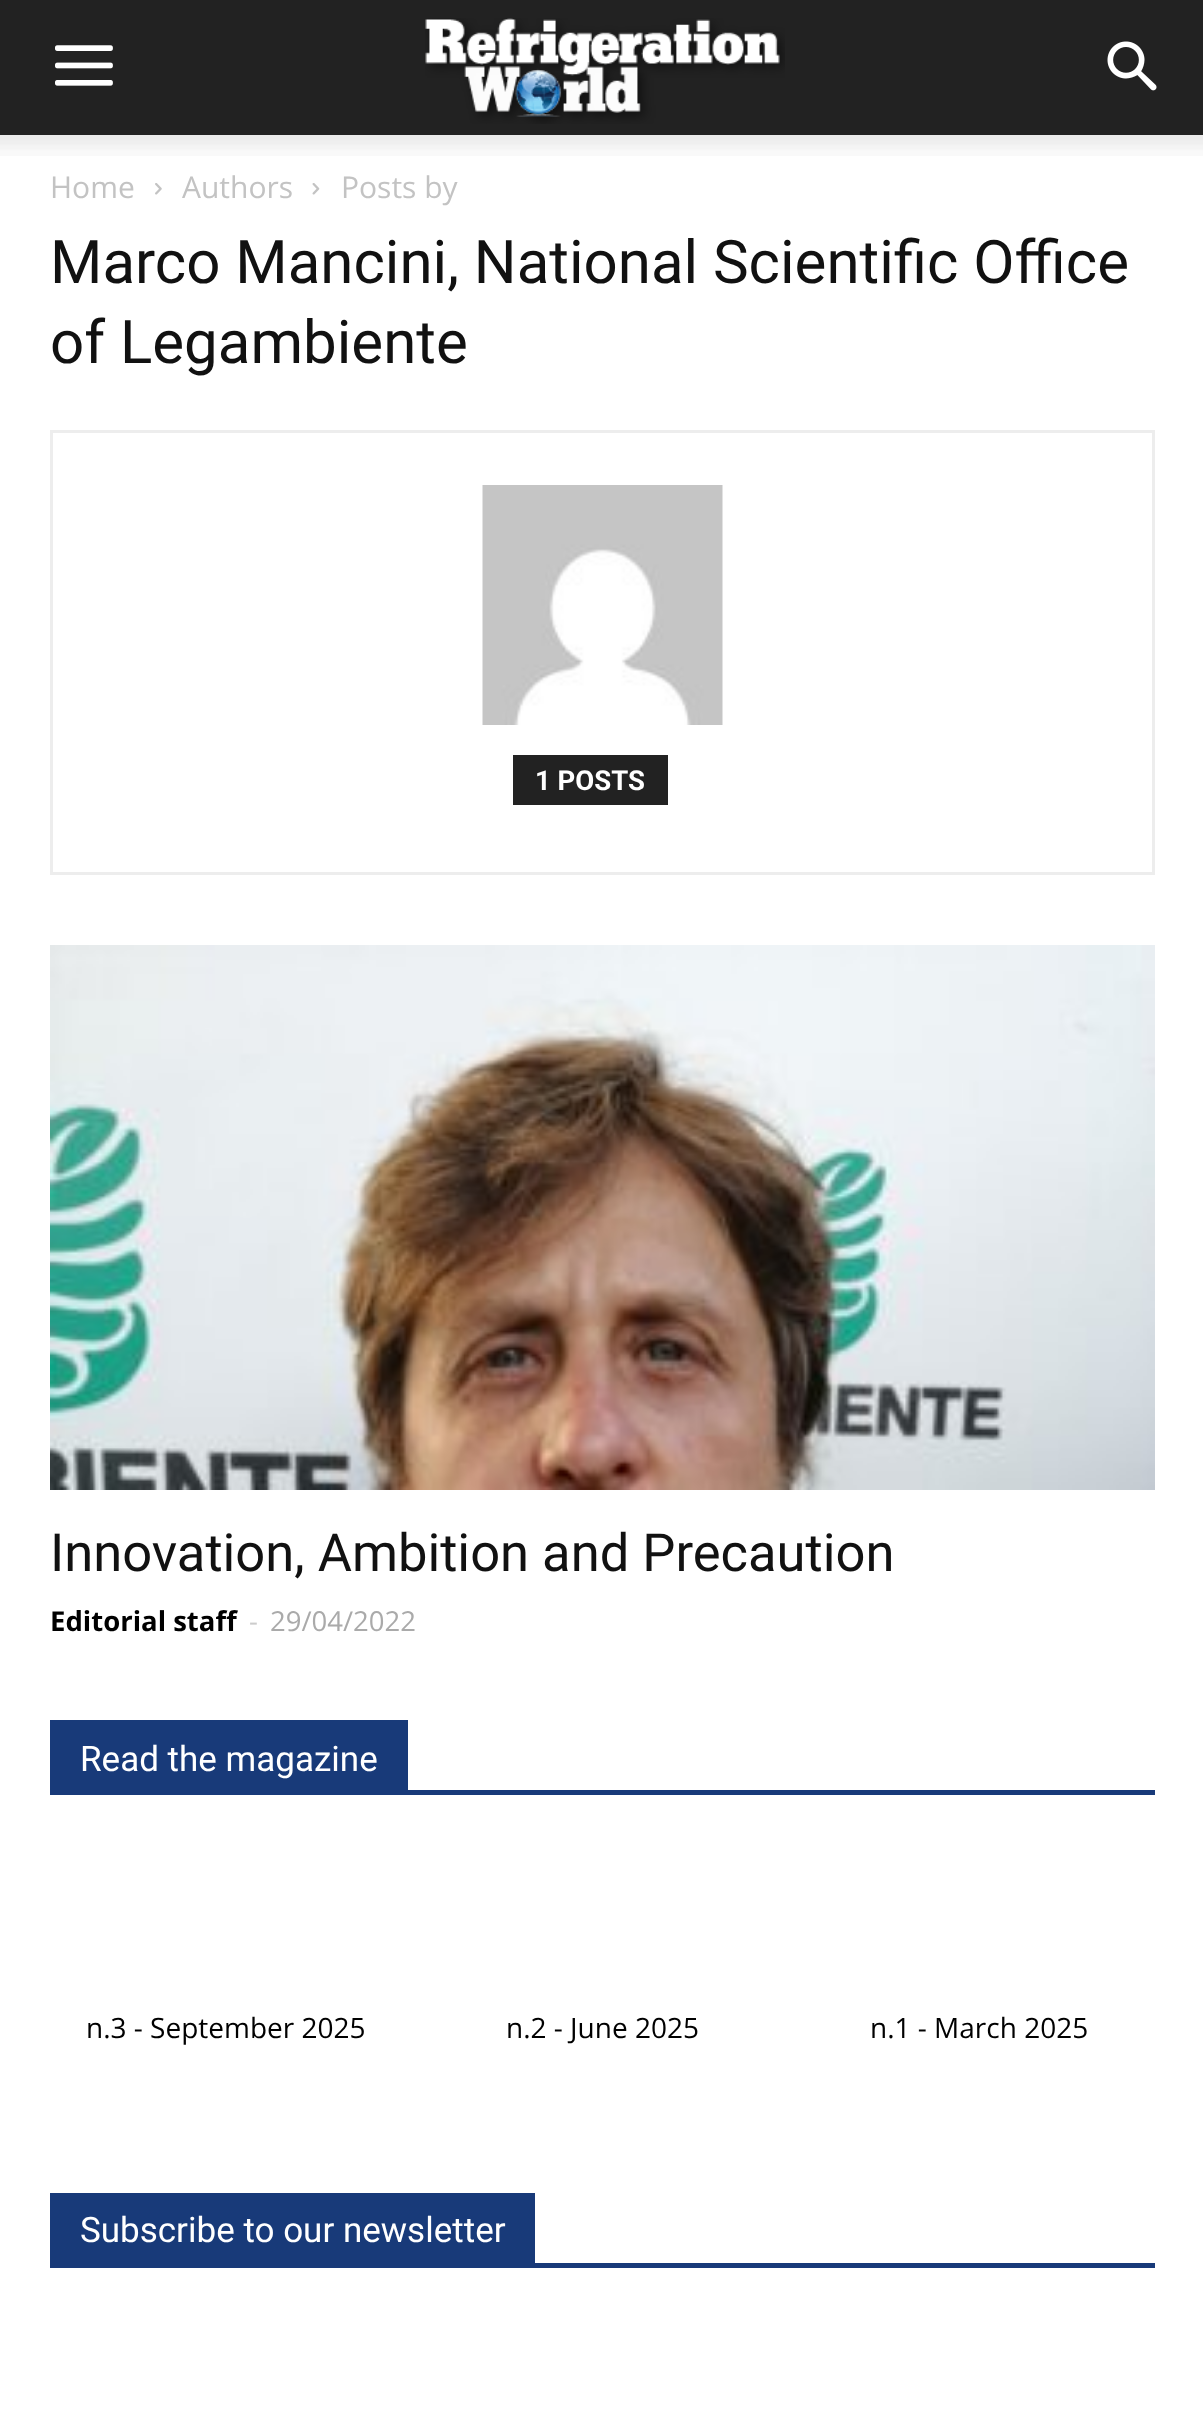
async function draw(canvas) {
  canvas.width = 1203
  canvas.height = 2427
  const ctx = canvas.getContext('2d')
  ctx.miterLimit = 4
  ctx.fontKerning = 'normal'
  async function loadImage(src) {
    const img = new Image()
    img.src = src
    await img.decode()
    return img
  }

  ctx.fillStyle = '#fff'
  ctx.fillRect(0, 0, 1203, 2427)
  ctx.fillStyle = '#222'
  ctx.fillRect(0, 0, 1203, 135)
  ctx.drawImage(await loadImage('image0.png'), 55, 45, 58, 41)
  ctx.drawImage(await loadImage('image1.png'), 425, 18, 360, 106)
  ctx.drawImage(await loadImage('image2.png'), 1107, 41, 50, 50)
  ctx.drawImage(await loadImage('image3.png'), 0, 135, 1203, 21)
  ctx.font = '30px Open Sans'
  ctx.fillStyle = '#c3c3c3'
  ctx.fillText('Home', 50, 198)
  ctx.drawImage(await loadImage('image4.png'), 155, 183, 7, 12)
  ctx.fillText('Authors', 182, 198)
  ctx.drawImage(await loadImage('image5.png'), 312, 183, 8, 12)
  ctx.fillText('Posts by', 341, 198)
  ctx.font = '60px Roboto'
  ctx.fillStyle = '#111'
  ctx.fillText('Marco Mancini, National Scientific Office', 50, 283)
  ctx.fillText('of Legambiente', 50, 363)
  ctx.strokeStyle = '#ededed'
  ctx.lineWidth = 3
  ctx.strokeRect(51.5, 431.5, 1102, 442)
  ctx.drawImage(await loadImage('image6.png'), 482, 485, 241, 240)
  ctx.fillStyle = '#222'
  ctx.fillRect(513, 755, 155, 50)
  ctx.font = 'bold 27.5px Roboto'
  ctx.fillStyle = '#fff'
  ctx.fillText('1 POSTS', 535, 790)
  ctx.drawImage(await loadImage('image7.png'), 50, 945, 1105, 545)
  ctx.font = '52.5px Roboto'
  ctx.fillStyle = '#111'
  ctx.fillText('Innovation, Ambition and Precaution', 50, 1571)
  ctx.font = 'bold 27.5px Open Sans'
  ctx.fillStyle = '#000'
  ctx.fillText('Editorial staff', 50, 1631)
  ctx.font = '27.5px Open Sans'
  ctx.fillStyle = '#ccc'
  ctx.fillText('-', 249, 1631)
  ctx.fillStyle = '#aaa'
  ctx.fillText('29/04/2022', 270, 1631)
  ctx.fillStyle = '#183a79'
  ctx.fillRect(50, 1790, 1105, 5)
  ctx.fillRect(50, 1720, 358, 70)
  ctx.font = '35px Roboto'
  ctx.fillStyle = '#fff'
  ctx.fillText('Read the magazine', 80, 1771)
  ctx.font = '28px Open Sans'
  ctx.fillStyle = '#000'
  ctx.fillText('n.3 - September 2025', 86, 2038)
  ctx.fillText('n.2 - June 2025', 506, 2038)
  ctx.fillText('n.1 - March 2025', 870, 2038)
  ctx.fillStyle = '#183a79'
  ctx.fillRect(50, 2263, 1105, 5)
  ctx.fillRect(50, 2193, 485, 70)
  ctx.font = '35px Roboto'
  ctx.fillStyle = '#fff'
  ctx.fillText('Subscribe to our newsletter', 80, 2242)
}

draw(document.querySelector('canvas'))
